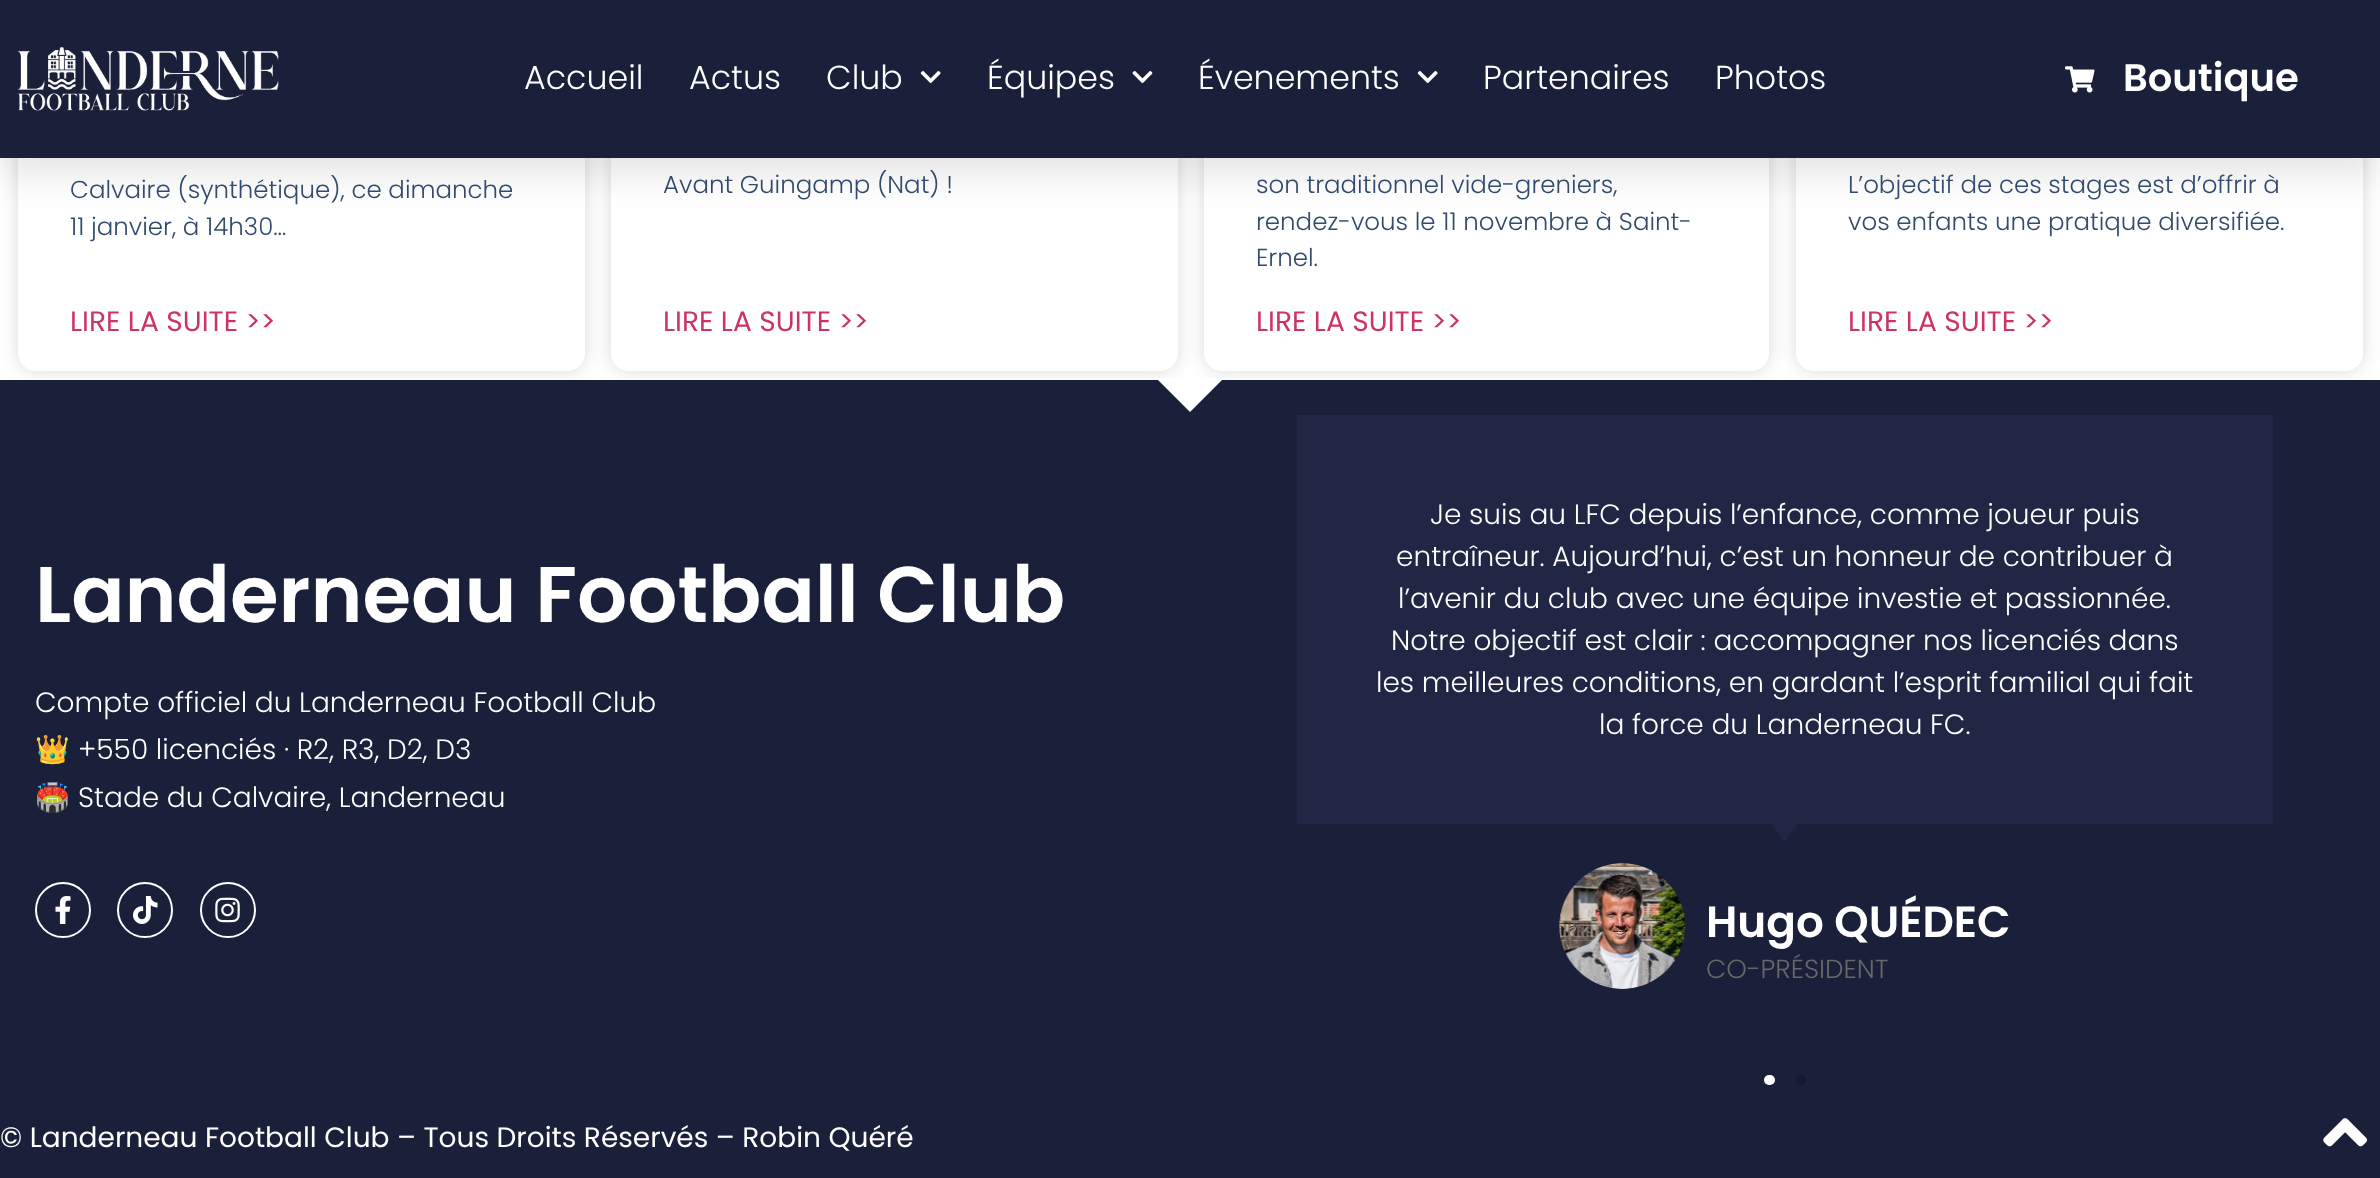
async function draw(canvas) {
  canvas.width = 2380
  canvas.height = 1178
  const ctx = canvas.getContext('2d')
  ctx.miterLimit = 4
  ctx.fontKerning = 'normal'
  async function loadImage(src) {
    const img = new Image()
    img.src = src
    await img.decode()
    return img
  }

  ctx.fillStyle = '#fff'
  ctx.fillRect(0, 0, 2380, 1178)
  ctx.fillStyle = '#00000026'
  ctx.filter = 'blur(9px)'
  ctx.beginPath()
  ctx.roundRect(18, -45, 567, 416, 18)
  ctx.fill()
  ctx.filter = 'none'
  ctx.fillStyle = '#fff'
  ctx.beginPath()
  ctx.roundRect(18, -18, 567, 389, 18)
  ctx.fill()
  ctx.fillStyle = '#00000026'
  ctx.filter = 'blur(9px)'
  ctx.beginPath()
  ctx.roundRect(611, -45, 567, 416, 18)
  ctx.fill()
  ctx.filter = 'none'
  ctx.fillStyle = '#fff'
  ctx.beginPath()
  ctx.roundRect(611, -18, 567, 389, 18)
  ctx.fill()
  ctx.fillStyle = '#00000026'
  ctx.filter = 'blur(9px)'
  ctx.beginPath()
  ctx.roundRect(1204, -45, 565, 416, 18)
  ctx.fill()
  ctx.filter = 'none'
  ctx.fillStyle = '#fff'
  ctx.beginPath()
  ctx.roundRect(1204, -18, 565, 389, 18)
  ctx.fill()
  ctx.fillStyle = '#00000026'
  ctx.filter = 'blur(9px)'
  ctx.beginPath()
  ctx.roundRect(1796, -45, 567, 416, 18)
  ctx.fill()
  ctx.filter = 'none'
  ctx.fillStyle = '#fff'
  ctx.beginPath()
  ctx.roundRect(1796, -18, 567, 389, 18)
  ctx.fill()
  ctx.fillStyle = '#0000001a'
  ctx.filter = 'blur(17.5px)'
  ctx.beginPath()
  ctx.rect(0, 18, 2380, 157)
  ctx.fill()
  ctx.filter = 'none'
  ctx.fillStyle = '#1a1f3a'
  ctx.fillRect(0, 0, 2380, 158)
  ctx.drawImage(await loadImage('image0.png'), 17, 47, 262, 64)
  ctx.font = '300 33.25px Poppins'
  ctx.fillStyle = '#fff'
  ctx.fillText('Accueil', 524, 89)
  ctx.fillText('Actus', 689, 89)
  ctx.fillText('Club', 826, 89)
  ctx.drawImage(await loadImage('image1.png'), 920, 71, 21, 12)
  ctx.fillText('Équipes', 987, 89)
  ctx.drawImage(await loadImage('image2.png'), 1132, 71, 21, 12)
  ctx.fillText('Évenements', 1198, 89)
  ctx.drawImage(await loadImage('image1.png'), 1417, 71, 21, 12)
  ctx.fillText('Partenaires', 1483, 89)
  ctx.fillText('Photos', 1715, 89)
  ctx.drawImage(await loadImage('image3.png'), 2065, 66, 30, 27)
  ctx.font = '600 38.5px Poppins'
  ctx.fillText('Boutique', 2123, 91)
  ctx.font = '300 24.5px Poppins'
  ctx.fillStyle = '#324a6d'
  ctx.fillText('Calvaire (synthétique), ce dimanche', 70, 198)
  ctx.fillText('11 janvier, à 14h30…', 70, 235)
  ctx.font = '28px Poppins'
  ctx.fillStyle = '#c36'
  ctx.fillText('LIRE LA SUITE >>', 70, 331)
  ctx.font = '300 24.5px Poppins'
  ctx.fillStyle = '#324a6d'
  ctx.fillText('Avant Guingamp (Nat) !', 663, 193)
  ctx.font = '28px Poppins'
  ctx.fillStyle = '#c36'
  ctx.fillText('LIRE LA SUITE >>', 663, 331)
  ctx.font = '300 24.5px Poppins'
  ctx.fillStyle = '#324a6d'
  ctx.fillText('son traditionnel vide-greniers,', 1256, 193)
  ctx.fillText('rendez-vous le 11 novembre à Saint-', 1256, 230)
  ctx.fillText('Ernel.', 1256, 266)
  ctx.font = '28px Poppins'
  ctx.fillStyle = '#c36'
  ctx.fillText('LIRE LA SUITE >>', 1256, 331)
  ctx.font = '300 24.5px Poppins'
  ctx.fillStyle = '#324a6d'
  ctx.fillText('L’objectif de ces stages est d’offrir à', 1848, 193)
  ctx.fillText('vos enfants une pratique diversifiée.', 1848, 230)
  ctx.font = '28px Poppins'
  ctx.fillStyle = '#c36'
  ctx.fillText('LIRE LA SUITE >>', 1848, 331)
  ctx.fillStyle = '#1a1f3a'
  ctx.fillRect(0, 380, 2380, 798)
  ctx.fillStyle = '#fff'
  ctx.beginPath()
  ctx.moveTo(1190, 412)
  ctx.lineTo(1156, 378)
  ctx.lineTo(1224, 378)
  ctx.closePath()
  ctx.fill()
  ctx.font = '600 78.75px Poppins'
  ctx.fillText('Landerneau Football Club', 35, 622)
  ctx.font = '300 28px Poppins'
  ctx.fillText('Compte officiel du Landerneau Football Club', 35, 712)
  ctx.font = '28px Noto Color Emoji'
  ctx.fillText('👑', 35, 759)
  ctx.font = '300 28px Poppins'
  ctx.fillText('+550 licenciés · R2, R3, D2, D3', 78, 759)
  ctx.font = '28px Noto Color Emoji'
  ctx.fillText('🏟️', 35, 807)
  ctx.font = '300 28px Poppins'
  ctx.fillText('Stade du Calvaire, Landerneau', 78, 807)
  ctx.beginPath()
  ctx.arc(63, 910, 27, 0, 2 * Math.PI)
  ctx.strokeStyle = '#fff'
  ctx.lineWidth = 2
  ctx.stroke()
  ctx.drawImage(await loadImage('image4.png'), 55, 896, 16, 28)
  ctx.beginPath()
  ctx.arc(145, 910, 27, 0, 2 * Math.PI)
  ctx.stroke()
  ctx.drawImage(await loadImage('image5.png'), 133, 896, 25, 28)
  ctx.beginPath()
  ctx.arc(228, 910, 27, 0, 2 * Math.PI)
  ctx.stroke()
  ctx.drawImage(await loadImage('image6.png'), 215, 897, 25, 26)
  ctx.fillStyle = '#202644'
  ctx.fillRect(1297, 415, 976, 409)
  ctx.fillStyle = '#fff'
  ctx.fillText('Je suis au LFC depuis l’enfance, comme joueur puis', 1430, 524)
  ctx.fillText('entraîneur. Aujourd’hui, c’est un honneur de contribuer à', 1396, 566)
  ctx.fillText('l’avenir du club avec une équipe investie et passionnée.', 1398, 608)
  ctx.fillText('Notre objectif est clair : accompagner nos licenciés dans', 1391, 650)
  ctx.fillText('les meilleures conditions, en gardant l’esprit familial qui fait', 1376, 692)
  ctx.fillText('la force du Landerneau FC.', 1599, 734)
  ctx.fillStyle = '#202644'
  ctx.beginPath()
  ctx.moveTo(1784.5, 807)
  ctx.lineTo(1797.5, 824.5)
  ctx.lineTo(1784.5, 842)
  ctx.lineTo(1771.5, 824.5)
  ctx.closePath()
  ctx.fill()
  ctx.drawImage(await loadImage('image7.png'), 1559, 863, 127, 126)
  ctx.font = '600 43.75px Poppins'
  ctx.fillStyle = '#fff'
  ctx.fillText('Hugo QUÉDEC', 1706, 937)
  ctx.font = '300 26.25px Poppins'
  ctx.fillStyle = '#686868'
  ctx.fillText('CO-PRÉSIDENT', 1706, 978)
  ctx.fillStyle = '#fff'
  ctx.beginPath()
  ctx.roundRect(1764, 1075, 11, 10, 5)
  ctx.fill()
  ctx.fillStyle = '#15192e'
  ctx.beginPath()
  ctx.arc(1801, 1080, 5, 0, 2 * Math.PI)
  ctx.fill()
  ctx.font = '28px Poppins'
  ctx.fillStyle = '#fff'
  ctx.fillText('© Landerneau Football Club – Tous Droits Réservés – Robin Quéré', 0, 1147)
  ctx.drawImage(await loadImage('image8.png'), 2323, 1118, 44, 29)
}

draw(document.querySelector('canvas'))
